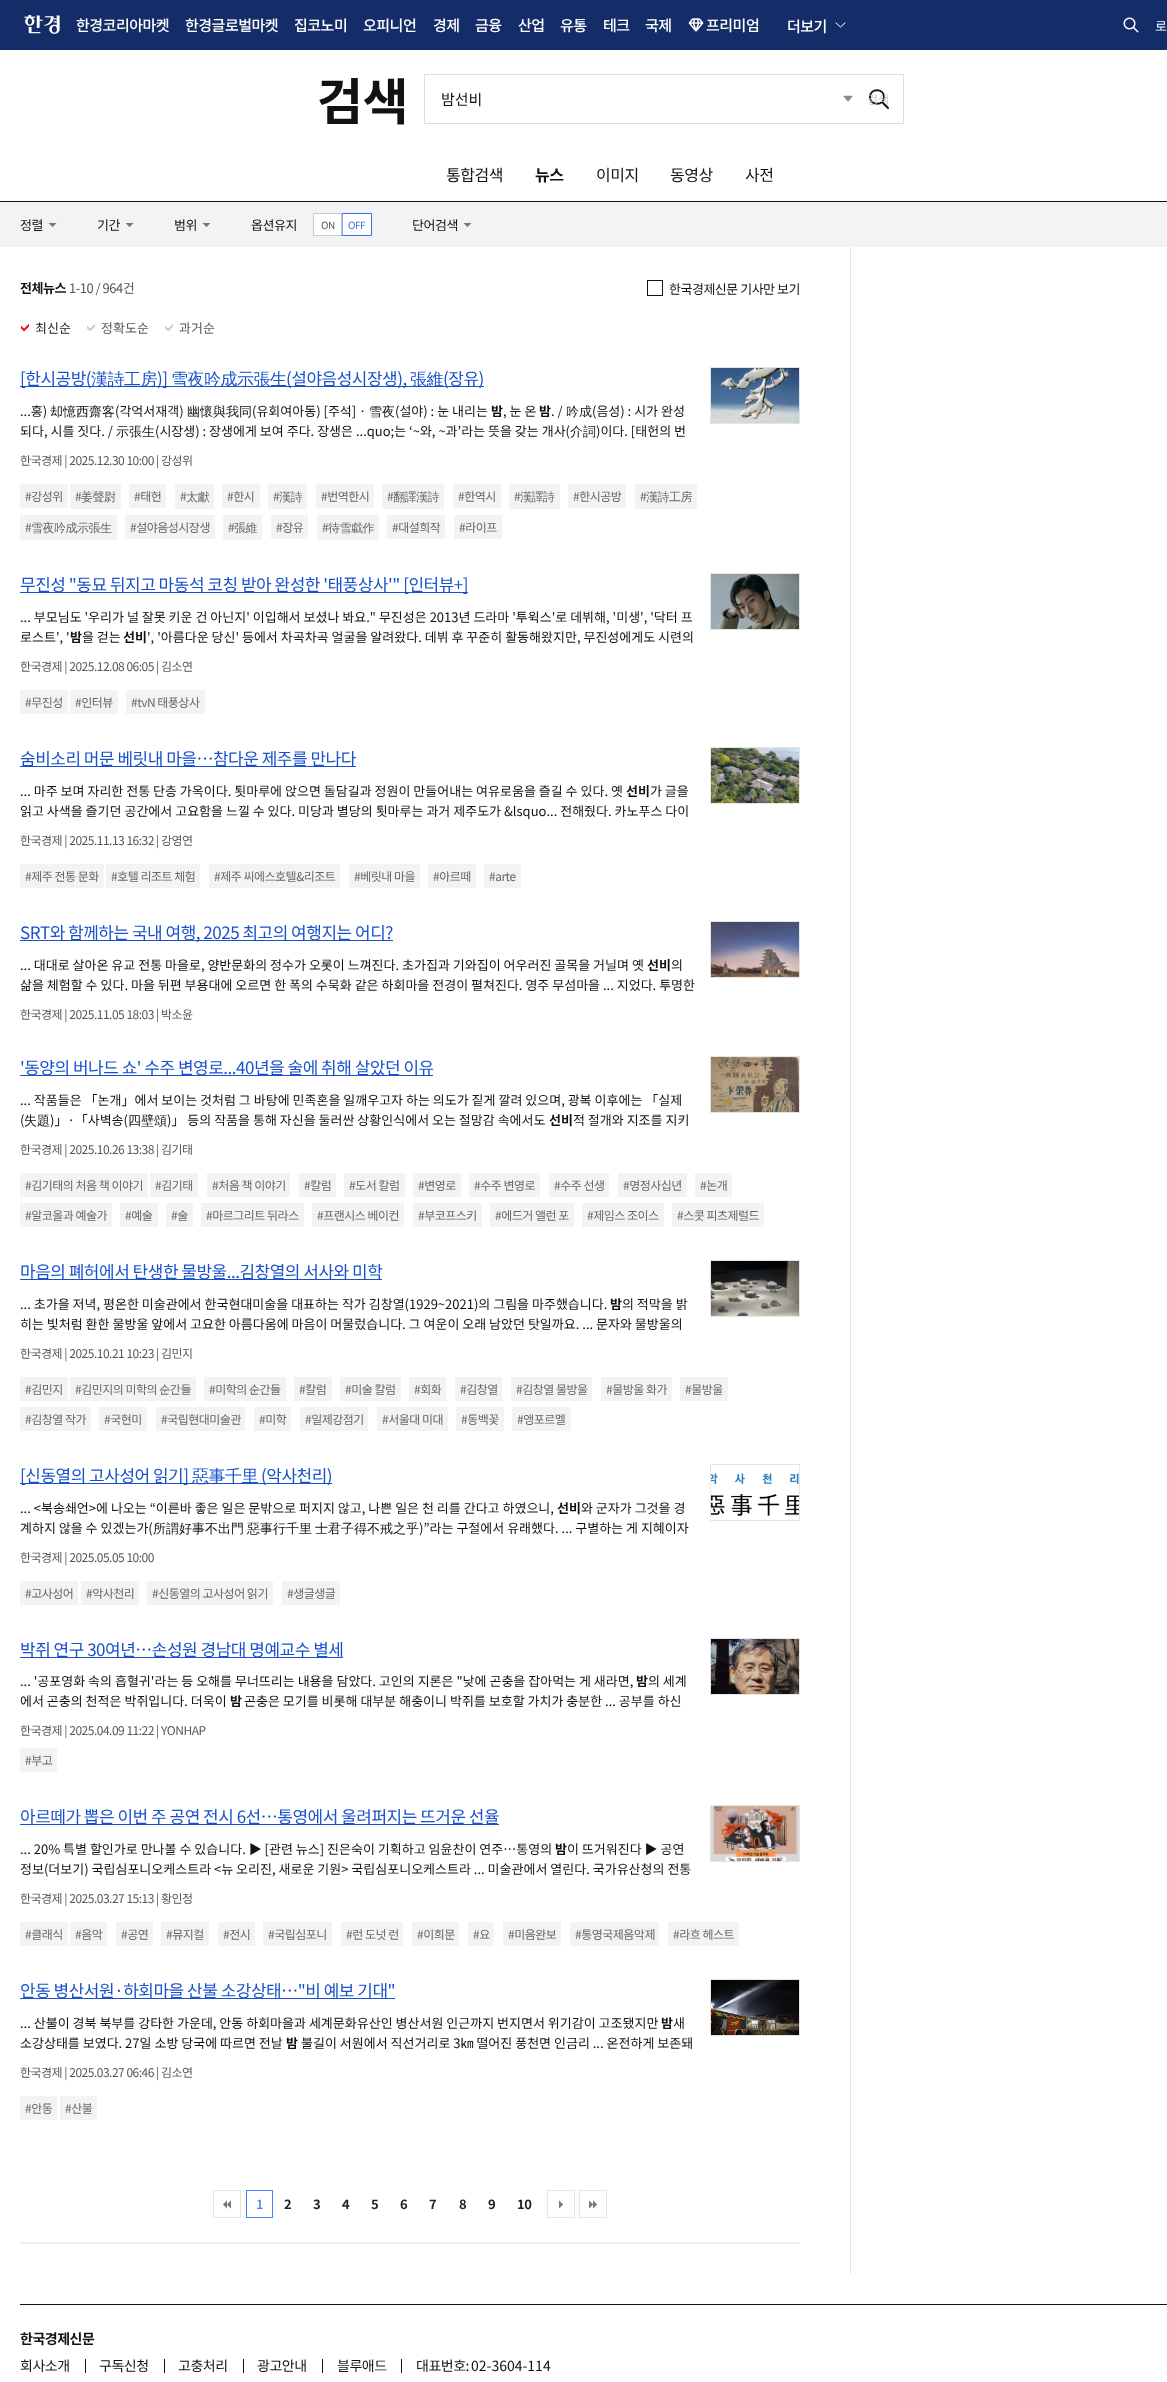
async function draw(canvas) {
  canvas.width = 1167
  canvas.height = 2382
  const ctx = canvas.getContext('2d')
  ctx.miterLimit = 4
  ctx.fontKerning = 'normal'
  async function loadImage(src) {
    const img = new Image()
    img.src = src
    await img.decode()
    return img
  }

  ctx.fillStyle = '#fff'
  ctx.fillRect(0, 0, 1167, 2382)
  ctx.fillStyle = '#121212'
  ctx.fillRect(0, 201, 1167, 1)
  ctx.fillStyle = '#142c67'
  ctx.fillRect(0, 0, 1167, 50)
  ctx.drawImage(await loadImage('image0.png'), 24, 15, 36, 19)
  ctx.letterSpacing = '-0.5px'
  ctx.font = '500 15px Noto Sans KR'
  ctx.fillStyle = '#fff'
  ctx.fillText('한경코리아마켓', 76, 31)
  ctx.fillText('한경글로벌마켓', 185, 31)
  ctx.fillText('집코노미', 294, 31)
  ctx.fillText('오피니언', 363, 31)
  ctx.fillText('경제', 433, 31)
  ctx.fillText('금융', 475, 31)
  ctx.fillText('산업', 518, 31)
  ctx.fillText('유통', 560, 31)
  ctx.fillText('테크', 603, 31)
  ctx.fillText('국제', 645, 31)
  ctx.drawImage(await loadImage('image1.png'), 688, 18, 16, 14)
  ctx.fillText('프리미엄', 706, 31)
  ctx.fillText('더보기', 787, 32)
  ctx.beginPath()
  ctx.moveTo(836, 23)
  ctx.lineTo(840.5, 27)
  ctx.lineTo(845, 23)
  ctx.strokeStyle = '#fff'
  ctx.lineCap = 'round'
  ctx.lineJoin = 'round'
  ctx.stroke()
  ctx.drawImage(await loadImage('image2.png'), 1123, 17, 16, 16)
  ctx.letterSpacing = '0px'
  ctx.font = '13px Noto Sans KR'
  ctx.fillText('로', 1155, 31)
  ctx.letterSpacing = '-0.5px'
  ctx.font = 'bold 50px Noto Sans KR'
  ctx.fillStyle = '#121212'
  ctx.fillText('검색', 317, 120)
  ctx.strokeStyle = '#ddd'
  ctx.lineJoin = 'miter'
  ctx.strokeRect(424.5, 74.5, 479, 49)
  ctx.letterSpacing = '0px'
  ctx.font = '15px Noto Sans KR'
  ctx.fillText('밤선비', 441, 105)
  ctx.drawImage(await loadImage('image3.png'), 843, 95, 10, 7)
  ctx.beginPath()
  ctx.moveTo(888, 108)
  ctx.lineTo(882, 102)
  ctx.moveTo(884, 97)
  ctx.bezierCurveTo(884, 106, 870, 106, 870, 97)
  ctx.bezierCurveTo(870, 88, 884, 88, 884, 97)
  ctx.closePath()
  ctx.strokeStyle = '#121212'
  ctx.lineWidth = 2
  ctx.lineJoin = 'round'
  ctx.stroke()
  ctx.font = '12px Noto Sans KR'
  ctx.fillStyle = '#c8c8c8'
  ctx.fillText('검색', 867, 104)
  ctx.letterSpacing = '-0.5px'
  ctx.font = '16px Noto Sans KR'
  ctx.fillStyle = '#121212'
  ctx.fillText('통합검색', 446, 181)
  ctx.font = 'bold 16px Noto Sans KR'
  ctx.fillText('뉴스', 535, 181)
  ctx.font = '16px Noto Sans KR'
  ctx.fillText('이미지', 596, 181)
  ctx.fillText('동영상', 670, 181)
  ctx.fillText('사전', 745, 181)
  ctx.fillStyle = '#f3f3f3'
  ctx.fillRect(0, 202, 1167, 45)
  ctx.drawImage(await loadImage('image4.png'), 48, 223, 9, 4)
  ctx.font = '13px Noto Sans KR'
  ctx.fillStyle = '#121212'
  ctx.fillText('정렬', 20, 230)
  ctx.drawImage(await loadImage('image4.png'), 125, 223, 9, 4)
  ctx.fillText('기간', 97, 230)
  ctx.drawImage(await loadImage('image4.png'), 202, 223, 9, 4)
  ctx.fillText('범위', 174, 230)
  ctx.fillText('옵션유지', 251, 230)
  ctx.fillStyle = '#fff'
  ctx.fillRect(313, 213, 29, 23)
  ctx.fillStyle = '#ccc'
  ctx.beginPath()
  ctx.moveTo(313, 213)
  ctx.lineTo(342, 213)
  ctx.lineTo(342, 214)
  ctx.lineTo(314, 214)
  ctx.closePath()
  ctx.moveTo(342, 236)
  ctx.lineTo(313, 236)
  ctx.lineTo(314, 235)
  ctx.lineTo(342, 235)
  ctx.closePath()
  ctx.fill()
  ctx.fillStyle = '#00000033'
  ctx.beginPath()
  ctx.moveTo(313, 236)
  ctx.lineTo(313, 213)
  ctx.lineTo(314, 214)
  ctx.lineTo(314, 235)
  ctx.closePath()
  ctx.fill()
  ctx.font = '10px Noto Sans KR'
  ctx.fillStyle = '#585858'
  ctx.fillText('ON', 321, 229)
  ctx.fillStyle = '#fff'
  ctx.beginPath()
  ctx.rect(342.5, 213.5, 29, 22)
  ctx.fill()
  ctx.strokeStyle = '#376feb'
  ctx.lineWidth = 1
  ctx.lineJoin = 'miter'
  ctx.stroke()
  ctx.fillStyle = '#376feb'
  ctx.fillText('OFF', 348, 229)
  ctx.drawImage(await loadImage('image4.png'), 463, 223, 9, 4)
  ctx.font = '13px Noto Sans KR'
  ctx.fillStyle = '#121212'
  ctx.fillText('단어검색', 412, 230)
  ctx.fillStyle = '#e5e5e5'
  ctx.fillRect(850, 247, 1, 2027)
  ctx.font = 'bold 13px Noto Sans KR'
  ctx.fillStyle = '#121212'
  ctx.fillText('전체뉴스', 20, 293)
  ctx.font = '13px Noto Sans KR'
  ctx.fillStyle = '#585858'
  ctx.fillText('1-10 / 964건', 69, 293)
  ctx.strokeStyle = '#121212'
  ctx.strokeRect(647.5, 280.5, 15, 15)
  ctx.fillStyle = '#121212'
  ctx.fillText('한국경제신문 기사만 보기', 669, 294)
  ctx.drawImage(await loadImage('image5.png'), 21, 323, 8, 9)
  ctx.letterSpacing = '0px'
  ctx.fillStyle = '#222'
  ctx.fillText('최신순', 35, 333)
  ctx.drawImage(await loadImage('image6.png'), 87, 324, 8, 8)
  ctx.fillStyle = '#585858'
  ctx.fillText('정확도순', 101, 333)
  ctx.drawImage(await loadImage('image6.png'), 165, 324, 8, 8)
  ctx.fillText('과거순', 179, 333)
  ctx.fillStyle = '#1951cc'
  ctx.fillRect(20, 386, 464, 1)
  ctx.letterSpacing = '-0.5px'
  ctx.font = '17px Noto Sans KR'
  ctx.fillText('[한시공방(', 20, 385)
  ctx.font = '500 17px WenQuanYi Zen Hei'
  ctx.fillText('漢詩工房', 91, 385)
  ctx.font = '17px Noto Sans KR'
  ctx.fillText(')]', 157, 385)
  ctx.font = '500 17px WenQuanYi Zen Hei'
  ctx.fillText('雪夜吟成示張生', 171, 385)
  ctx.font = '17px Noto Sans KR'
  ctx.fillText('(설야음성시장생),', 286, 385)
  ctx.font = '500 17px WenQuanYi Zen Hei'
  ctx.fillText('張維', 410, 385)
  ctx.font = '17px Noto Sans KR'
  ctx.fillText('(장유)', 443, 385)
  ctx.strokeStyle = '#e5e5e5'
  ctx.strokeRect(710.5, 367.5, 89, 56)
  ctx.drawImage(await loadImage('image7.png'), 711, 368, 88, 55)
  ctx.letterSpacing = '0px'
  ctx.font = '13px Noto Sans KR'
  ctx.fillStyle = '#121212'
  ctx.fillText('...홍)', 20, 416)
  ctx.font = '500 13px WenQuanYi Zen Hei'
  ctx.fillText('却憶西齋客', 50, 416)
  ctx.font = '13px Noto Sans KR'
  ctx.fillText('(각억서재객)', 115, 416)
  ctx.font = '500 13px WenQuanYi Zen Hei'
  ctx.fillText('幽懷與我同', 187, 416)
  ctx.font = '13px Noto Sans KR'
  ctx.fillText('(유회여아동) [주석] ·', 252, 416)
  ctx.font = '500 13px WenQuanYi Zen Hei'
  ctx.fillText('雪夜', 369, 416)
  ctx.font = '13px Noto Sans KR'
  ctx.fillText('(설야) : 눈 내리는', 395, 416)
  ctx.font = 'bold 13px Noto Sans KR'
  ctx.fillText('밤', 491, 416)
  ctx.font = '13px Noto Sans KR'
  ctx.fillText(', 눈 온', 503, 416)
  ctx.font = 'bold 13px Noto Sans KR'
  ctx.fillText('밤', 539, 416)
  ctx.font = '13px Noto Sans KR'
  ctx.fillText('. /', 551, 416)
  ctx.font = '500 13px WenQuanYi Zen Hei'
  ctx.fillText('吟成', 566, 416)
  ctx.font = '13px Noto Sans KR'
  ctx.fillText('(음성) : 시가 완성', 592, 416)
  ctx.fillText('되다, 시를 짓다. /', 20, 436)
  ctx.font = '500 13px WenQuanYi Zen Hei'
  ctx.fillText('示張生', 116, 436)
  ctx.font = '13px Noto Sans KR'
  ctx.fillText('(시장생) : 장생에게 보여 주다. 장생은 ...quo;는 ‘~와, ~과’라는 뜻을 갖는 개사(', 155, 436)
  ctx.font = '500 13px WenQuanYi Zen Hei'
  ctx.fillText('介詞', 570, 436)
  ctx.font = '13px Noto Sans KR'
  ctx.fillText(')이다. [태헌의 번', 596, 436)
  ctx.letterSpacing = '-0.5px'
  ctx.font = '12px Noto Sans KR'
  ctx.fillStyle = '#585858'
  ctx.fillText('한국경제 | 2025.12.30 10:00 | 강성위', 20, 465)
  ctx.fillStyle = '#f3f3f3'
  ctx.fillRect(20, 484, 48, 24)
  ctx.fillStyle = '#666'
  ctx.fillText('#강성위', 25, 501)
  ctx.fillStyle = '#f3f3f3'
  ctx.fillRect(70, 484, 51, 25)
  ctx.fillStyle = '#666'
  ctx.fillText('#', 75, 501)
  ctx.font = '500 12px WenQuanYi Zen Hei'
  ctx.fillText('姜聲尉', 81, 501)
  ctx.fillStyle = '#f3f3f3'
  ctx.fillRect(129, 484, 37, 24)
  ctx.font = '12px Noto Sans KR'
  ctx.fillStyle = '#666'
  ctx.fillText('#태헌', 134, 501)
  ctx.fillStyle = '#f3f3f3'
  ctx.fillRect(175, 484, 39, 25)
  ctx.fillStyle = '#666'
  ctx.fillText('#', 180, 501)
  ctx.font = '500 12px WenQuanYi Zen Hei'
  ctx.fillText('太獻', 186, 501)
  ctx.fillStyle = '#f3f3f3'
  ctx.fillRect(222, 484, 38, 24)
  ctx.font = '12px Noto Sans KR'
  ctx.fillStyle = '#666'
  ctx.fillText('#한시', 227, 501)
  ctx.fillStyle = '#f3f3f3'
  ctx.fillRect(268, 484, 39, 25)
  ctx.fillStyle = '#666'
  ctx.fillText('#', 273, 501)
  ctx.font = '500 12px WenQuanYi Zen Hei'
  ctx.fillText('漢詩', 279, 501)
  ctx.fillStyle = '#f3f3f3'
  ctx.fillRect(316, 484, 58, 24)
  ctx.font = '12px Noto Sans KR'
  ctx.fillStyle = '#666'
  ctx.fillText('#번역한시', 321, 501)
  ctx.fillStyle = '#f3f3f3'
  ctx.fillRect(382, 484, 62, 25)
  ctx.fillStyle = '#666'
  ctx.fillText('#', 387, 501)
  ctx.font = '500 12px WenQuanYi Zen Hei'
  ctx.fillText('翻譯漢詩', 393, 501)
  ctx.fillStyle = '#f3f3f3'
  ctx.fillRect(453, 484, 48, 24)
  ctx.font = '12px Noto Sans KR'
  ctx.fillStyle = '#666'
  ctx.fillText('#한역시', 458, 501)
  ctx.fillStyle = '#f3f3f3'
  ctx.fillRect(509, 484, 51, 25)
  ctx.fillStyle = '#666'
  ctx.fillText('#', 514, 501)
  ctx.font = '500 12px WenQuanYi Zen Hei'
  ctx.fillText('漢譯詩', 520, 501)
  ctx.fillStyle = '#f3f3f3'
  ctx.fillRect(568, 484, 58, 24)
  ctx.font = '12px Noto Sans KR'
  ctx.fillStyle = '#666'
  ctx.fillText('#한시공방', 573, 501)
  ctx.fillStyle = '#f3f3f3'
  ctx.fillRect(635, 484, 62, 25)
  ctx.fillStyle = '#666'
  ctx.fillText('#', 640, 501)
  ctx.font = '500 12px WenQuanYi Zen Hei'
  ctx.fillText('漢詩工房', 646, 501)
  ctx.fillStyle = '#f3f3f3'
  ctx.fillRect(20, 515, 97, 25)
  ctx.font = '12px Noto Sans KR'
  ctx.fillStyle = '#666'
  ctx.fillText('#', 25, 532)
  ctx.font = '500 12px WenQuanYi Zen Hei'
  ctx.fillText('雪夜吟成示張生', 31, 532)
  ctx.fillStyle = '#f3f3f3'
  ctx.fillRect(125, 515, 90, 24)
  ctx.font = '12px Noto Sans KR'
  ctx.fillStyle = '#666'
  ctx.fillText('#설야음성시장생', 130, 532)
  ctx.fillStyle = '#f3f3f3'
  ctx.fillRect(223, 515, 39, 25)
  ctx.fillStyle = '#666'
  ctx.fillText('#', 228, 532)
  ctx.font = '500 12px WenQuanYi Zen Hei'
  ctx.fillText('張維', 234, 532)
  ctx.fillStyle = '#f3f3f3'
  ctx.fillRect(271, 515, 37, 24)
  ctx.font = '12px Noto Sans KR'
  ctx.fillStyle = '#666'
  ctx.fillText('#장유', 276, 532)
  ctx.fillStyle = '#f3f3f3'
  ctx.fillRect(317, 515, 62, 25)
  ctx.fillStyle = '#666'
  ctx.fillText('#', 322, 532)
  ctx.font = '500 12px WenQuanYi Zen Hei'
  ctx.fillText('待雪戱作', 328, 532)
  ctx.fillStyle = '#f3f3f3'
  ctx.fillRect(387, 515, 58, 24)
  ctx.font = '12px Noto Sans KR'
  ctx.fillStyle = '#666'
  ctx.fillText('#대설희작', 392, 532)
  ctx.fillStyle = '#f3f3f3'
  ctx.fillRect(454, 515, 48, 24)
  ctx.fillStyle = '#666'
  ctx.fillText('#라이프', 459, 532)
  ctx.fillStyle = '#1951cc'
  ctx.fillRect(20, 592, 448, 1)
  ctx.font = '17px Noto Sans KR'
  ctx.fillText('무진성 "동묘 뒤지고 마동석 코칭 받아 완성한 \'태풍상사\'" [인터뷰+]', 20, 591)
  ctx.strokeRect(710.5, 573.5, 89, 56)
  ctx.drawImage(await loadImage('image8.png'), 711, 574, 88, 55)
  ctx.letterSpacing = '0px'
  ctx.font = '13px Noto Sans KR'
  ctx.fillStyle = '#121212'
  ctx.fillText('... 부모님도 \'우리가 널 잘못 키운 건 아닌지\' 이입해서 보셨나 봐요." 무진성은 2013년 드라마 \'투윅스\'로 데뷔해, \'미생\', \'닥터 프', 20, 622)
  ctx.fillText('로스트\', \'', 20, 642)
  ctx.font = 'bold 13px Noto Sans KR'
  ctx.fillText('밤', 70, 642)
  ctx.font = '13px Noto Sans KR'
  ctx.fillText('을 걷는', 82, 642)
  ctx.font = 'bold 13px Noto Sans KR'
  ctx.fillText('선비', 123, 642)
  ctx.font = '13px Noto Sans KR'
  ctx.fillText('\', \'아름다운 당신\' 등에서 차곡차곡 얼굴을 알려왔다. 데뷔 후 꾸준히 활동해왔지만, 무진성에게도 시련의', 147, 642)
  ctx.letterSpacing = '-0.5px'
  ctx.font = '12px Noto Sans KR'
  ctx.fillStyle = '#585858'
  ctx.fillText('한국경제 | 2025.12.08 06:05 | 김소연', 20, 671)
  ctx.fillStyle = '#f3f3f3'
  ctx.fillRect(20, 690, 48, 24)
  ctx.fillStyle = '#666'
  ctx.fillText('#무진성', 25, 707)
  ctx.fillStyle = '#f3f3f3'
  ctx.fillRect(70, 690, 48, 24)
  ctx.fillStyle = '#666'
  ctx.fillText('#인터뷰', 75, 707)
  ctx.fillStyle = '#f3f3f3'
  ctx.fillRect(126, 690, 79, 24)
  ctx.fillStyle = '#666'
  ctx.fillText('#tvN 태풍상사', 131, 707)
  ctx.fillStyle = '#1951cc'
  ctx.fillRect(20, 766, 336, 1)
  ctx.font = '17px Noto Sans KR'
  ctx.fillText('숨비소리 머문 베릿내 마을…참다운 제주를 만나다', 20, 765)
  ctx.strokeRect(710.5, 747.5, 89, 56)
  ctx.drawImage(await loadImage('image9.png'), 711, 748, 88, 55)
  ctx.letterSpacing = '0px'
  ctx.font = '13px Noto Sans KR'
  ctx.fillStyle = '#121212'
  ctx.fillText('... 마주 보며 자리한 전통 단층 가옥이다. 툇마루에 앉으면 돌담길과 정원이 만들어내는 여유로움을 즐길 수 있다. 옛', 20, 796)
  ctx.font = 'bold 13px Noto Sans KR'
  ctx.fillText('선비', 626, 796)
  ctx.font = '13px Noto Sans KR'
  ctx.fillText('가 글을', 650, 796)
  ctx.fillText('읽고 사색을 즐기던 공간에서 고요함을 느낄 수 있다. 미당과 별당의 툇마루는 과거 제주도가 &lsquo... 전해줬다. 카노푸스 다이', 20, 816)
  ctx.letterSpacing = '-0.5px'
  ctx.font = '12px Noto Sans KR'
  ctx.fillStyle = '#585858'
  ctx.fillText('한국경제 | 2025.11.13 16:32 | 강영연', 20, 845)
  ctx.fillStyle = '#f3f3f3'
  ctx.fillRect(20, 864, 84, 24)
  ctx.fillStyle = '#666'
  ctx.fillText('#제주 전통 문화', 25, 881)
  ctx.fillStyle = '#f3f3f3'
  ctx.fillRect(106, 864, 94, 24)
  ctx.fillStyle = '#666'
  ctx.fillText('#호텔 리조트 체험', 111, 881)
  ctx.fillStyle = '#f3f3f3'
  ctx.fillRect(209, 864, 131, 24)
  ctx.fillStyle = '#666'
  ctx.fillText('#제주 씨에스호텔&리조트', 214, 881)
  ctx.fillStyle = '#f3f3f3'
  ctx.fillRect(349, 864, 71, 24)
  ctx.fillStyle = '#666'
  ctx.fillText('#베릿내 마을', 354, 881)
  ctx.fillStyle = '#f3f3f3'
  ctx.fillRect(428, 864, 48, 24)
  ctx.fillStyle = '#666'
  ctx.fillText('#아르떼', 433, 881)
  ctx.fillStyle = '#f3f3f3'
  ctx.fillRect(484, 864, 37, 24)
  ctx.fillStyle = '#666'
  ctx.fillText('#arte', 489, 881)
  ctx.fillStyle = '#1951cc'
  ctx.fillRect(20, 940, 373, 1)
  ctx.font = '17px Noto Sans KR'
  ctx.fillText('SRT와 함께하는 국내 여행, 2025 최고의 여행지는 어디?', 20, 939)
  ctx.strokeRect(710.5, 921.5, 89, 56)
  ctx.drawImage(await loadImage('image10.png'), 711, 922, 88, 55)
  ctx.letterSpacing = '0px'
  ctx.font = '13px Noto Sans KR'
  ctx.fillStyle = '#121212'
  ctx.fillText('... 대대로 살아온 유교 전통 마을로, 양반문화의 정수가 오롯이 느껴진다. 초가집과 기와집이 어우러진 골목을 거닐며 옛', 20, 970)
  ctx.font = 'bold 13px Noto Sans KR'
  ctx.fillText('선비', 647, 970)
  ctx.font = '13px Noto Sans KR'
  ctx.fillText('의', 671, 970)
  ctx.fillText('삶을 체험할 수 있다. 마을 뒤편 부용대에 오르면 한 폭의 수묵화 같은 하회마을 전경이 펼쳐진다. 영주 무섬마을 ... 지었다. 투명한', 20, 990)
  ctx.letterSpacing = '-0.5px'
  ctx.font = '12px Noto Sans KR'
  ctx.fillStyle = '#585858'
  ctx.fillText('한국경제 | 2025.11.05 18:03 | 박소윤', 20, 1019)
  ctx.fillStyle = '#1951cc'
  ctx.fillRect(20, 1075, 413, 1)
  ctx.font = '17px Noto Sans KR'
  ctx.fillText('\'동양의 버나드 쇼\' 수주 변영로...40년을 술에 취해 살았던 이유', 20, 1074)
  ctx.strokeRect(710.5, 1056.5, 89, 56)
  ctx.drawImage(await loadImage('image11.png'), 711, 1057, 88, 55)
  ctx.letterSpacing = '0px'
  ctx.font = '13px Noto Sans KR'
  ctx.fillStyle = '#121212'
  ctx.fillText('... 작품들은 「논개」에서 보이는 것처럼 그 바탕에 민족혼을 일깨우고자 하는 의도가 짙게 깔려 있으며, 광복 이후에는 「실제', 20, 1105)
  ctx.fillText('(', 20, 1125)
  ctx.font = '500 13px WenQuanYi Zen Hei'
  ctx.fillText('失題', 24, 1125)
  ctx.font = '13px Noto Sans KR'
  ctx.fillText(')」·「사벽송(', 50, 1125)
  ctx.font = '500 13px WenQuanYi Zen Hei'
  ctx.fillText('四壁頌', 128, 1125)
  ctx.font = '13px Noto Sans KR'
  ctx.fillText(')」 등의 작품을 통해 자신을 둘러싼 상황인식에서 오는 절망감 속에서도', 167, 1125)
  ctx.font = 'bold 13px Noto Sans KR'
  ctx.fillText('선비', 549, 1125)
  ctx.font = '13px Noto Sans KR'
  ctx.fillText('적 절개와 지조를 지키', 573, 1125)
  ctx.letterSpacing = '-0.5px'
  ctx.font = '12px Noto Sans KR'
  ctx.fillStyle = '#585858'
  ctx.fillText('한국경제 | 2025.10.26 13:38 | 김기태', 20, 1154)
  ctx.fillStyle = '#f3f3f3'
  ctx.fillRect(20, 1173, 128, 24)
  ctx.fillStyle = '#666'
  ctx.fillText('#김기태의 처음 책 이야기', 25, 1190)
  ctx.fillStyle = '#f3f3f3'
  ctx.fillRect(150, 1173, 48, 24)
  ctx.fillStyle = '#666'
  ctx.fillText('#김기태', 155, 1190)
  ctx.fillStyle = '#f3f3f3'
  ctx.fillRect(207, 1173, 83, 24)
  ctx.fillStyle = '#666'
  ctx.fillText('#처음 책 이야기', 212, 1190)
  ctx.fillStyle = '#f3f3f3'
  ctx.fillRect(299, 1173, 37, 24)
  ctx.fillStyle = '#666'
  ctx.fillText('#칼럼', 304, 1190)
  ctx.fillStyle = '#f3f3f3'
  ctx.fillRect(344, 1173, 61, 24)
  ctx.fillStyle = '#666'
  ctx.fillText('#도서 칼럼', 349, 1190)
  ctx.fillStyle = '#f3f3f3'
  ctx.fillRect(413, 1173, 48, 24)
  ctx.fillStyle = '#666'
  ctx.fillText('#변영로', 418, 1190)
  ctx.fillStyle = '#f3f3f3'
  ctx.fillRect(469, 1173, 71, 24)
  ctx.fillStyle = '#666'
  ctx.fillText('#수주 변영로', 474, 1190)
  ctx.fillStyle = '#f3f3f3'
  ctx.fillRect(549, 1173, 60, 24)
  ctx.fillStyle = '#666'
  ctx.fillText('#수주 선생', 554, 1190)
  ctx.fillStyle = '#f3f3f3'
  ctx.fillRect(618, 1173, 69, 24)
  ctx.fillStyle = '#666'
  ctx.fillText('#명정사십년', 623, 1190)
  ctx.fillStyle = '#f3f3f3'
  ctx.fillRect(695, 1173, 37, 24)
  ctx.fillStyle = '#666'
  ctx.fillText('#논개', 700, 1190)
  ctx.fillStyle = '#f3f3f3'
  ctx.fillRect(20, 1203, 92, 24)
  ctx.fillStyle = '#666'
  ctx.fillText('#알코올과 예술가', 25, 1220)
  ctx.fillStyle = '#f3f3f3'
  ctx.fillRect(120, 1203, 38, 24)
  ctx.fillStyle = '#666'
  ctx.fillText('#예술', 125, 1220)
  ctx.fillStyle = '#f3f3f3'
  ctx.fillRect(166, 1203, 27, 24)
  ctx.fillStyle = '#666'
  ctx.fillText('#술', 171, 1220)
  ctx.fillStyle = '#f3f3f3'
  ctx.fillRect(201, 1203, 103, 24)
  ctx.fillStyle = '#666'
  ctx.fillText('#마르그리트 뒤라스', 206, 1220)
  ctx.fillStyle = '#f3f3f3'
  ctx.fillRect(312, 1203, 92, 24)
  ctx.fillStyle = '#666'
  ctx.fillText('#프랜시스 베이컨', 317, 1220)
  ctx.fillStyle = '#f3f3f3'
  ctx.fillRect(413, 1203, 69, 24)
  ctx.fillStyle = '#666'
  ctx.fillText('#부코프스키', 418, 1220)
  ctx.fillStyle = '#f3f3f3'
  ctx.fillRect(490, 1203, 84, 24)
  ctx.fillStyle = '#666'
  ctx.fillText('#에드거 앨런 포', 495, 1220)
  ctx.fillStyle = '#f3f3f3'
  ctx.fillRect(582, 1203, 82, 24)
  ctx.fillStyle = '#666'
  ctx.fillText('#제임스 조이스', 587, 1220)
  ctx.fillStyle = '#f3f3f3'
  ctx.fillRect(672, 1203, 92, 24)
  ctx.fillStyle = '#666'
  ctx.fillText('#스콧 피츠제럴드', 677, 1220)
  ctx.fillStyle = '#1951cc'
  ctx.fillRect(20, 1279, 362, 1)
  ctx.font = '17px Noto Sans KR'
  ctx.fillText('마음의 폐허에서 탄생한 물방울...김창열의 서사와 미학', 20, 1278)
  ctx.strokeRect(710.5, 1260.5, 89, 56)
  ctx.drawImage(await loadImage('image12.png'), 711, 1261, 88, 55)
  ctx.letterSpacing = '0px'
  ctx.font = '13px Noto Sans KR'
  ctx.fillStyle = '#121212'
  ctx.fillText('... 초가을 저녁, 평온한 미술관에서 한국현대미술을 대표하는 작가 김창열(1929~2021)의 그림을 마주했습니다.', 20, 1309)
  ctx.font = 'bold 13px Noto Sans KR'
  ctx.fillText('밤', 610, 1309)
  ctx.font = '13px Noto Sans KR'
  ctx.fillText('의 적막을 밝', 622, 1309)
  ctx.fillText('히는 빛처럼 환한 물방울 앞에서 고요한 아름다움에 마음이 머물렀습니다. 그 여운이 오래 남았던 탓일까요. ... 문자와 물방울의', 20, 1329)
  ctx.letterSpacing = '-0.5px'
  ctx.font = '12px Noto Sans KR'
  ctx.fillStyle = '#585858'
  ctx.fillText('한국경제 | 2025.10.21 10:23 | 김민지', 20, 1358)
  ctx.fillStyle = '#f3f3f3'
  ctx.fillRect(20, 1377, 48, 24)
  ctx.fillStyle = '#666'
  ctx.fillText('#김민지', 25, 1394)
  ctx.fillStyle = '#f3f3f3'
  ctx.fillRect(70, 1377, 126, 24)
  ctx.fillStyle = '#666'
  ctx.fillText('#김민지의 미학의 순간들', 75, 1394)
  ctx.fillStyle = '#f3f3f3'
  ctx.fillRect(204, 1377, 82, 24)
  ctx.fillStyle = '#666'
  ctx.fillText('#미학의 순간들', 209, 1394)
  ctx.fillStyle = '#f3f3f3'
  ctx.fillRect(294, 1377, 38, 24)
  ctx.fillStyle = '#666'
  ctx.fillText('#칼럼', 299, 1394)
  ctx.fillStyle = '#f3f3f3'
  ctx.fillRect(340, 1377, 61, 24)
  ctx.fillStyle = '#666'
  ctx.fillText('#미술 칼럼', 345, 1394)
  ctx.fillStyle = '#f3f3f3'
  ctx.fillRect(409, 1377, 37, 24)
  ctx.fillStyle = '#666'
  ctx.fillText('#회화', 414, 1394)
  ctx.fillStyle = '#f3f3f3'
  ctx.fillRect(455, 1377, 47, 24)
  ctx.fillStyle = '#666'
  ctx.fillText('#김창열', 460, 1394)
  ctx.fillStyle = '#f3f3f3'
  ctx.fillRect(511, 1377, 81, 24)
  ctx.fillStyle = '#666'
  ctx.fillText('#김창열 물방울', 516, 1394)
  ctx.fillStyle = '#f3f3f3'
  ctx.fillRect(601, 1377, 71, 24)
  ctx.fillStyle = '#666'
  ctx.fillText('#물방울 화가', 606, 1394)
  ctx.fillStyle = '#f3f3f3'
  ctx.fillRect(680, 1377, 48, 24)
  ctx.fillStyle = '#666'
  ctx.fillText('#물방울', 685, 1394)
  ctx.fillStyle = '#f3f3f3'
  ctx.fillRect(20, 1407, 71, 24)
  ctx.fillStyle = '#666'
  ctx.fillText('#김창열 작가', 25, 1424)
  ctx.fillStyle = '#f3f3f3'
  ctx.fillRect(99, 1407, 48, 24)
  ctx.fillStyle = '#666'
  ctx.fillText('#국현미', 104, 1424)
  ctx.fillStyle = '#f3f3f3'
  ctx.fillRect(156, 1407, 89, 24)
  ctx.fillStyle = '#666'
  ctx.fillText('#국립현대미술관', 161, 1424)
  ctx.fillStyle = '#f3f3f3'
  ctx.fillRect(254, 1407, 37, 24)
  ctx.fillStyle = '#666'
  ctx.fillText('#미학', 259, 1424)
  ctx.fillStyle = '#f3f3f3'
  ctx.fillRect(300, 1407, 68, 24)
  ctx.fillStyle = '#666'
  ctx.fillText('#일제강점기', 305, 1424)
  ctx.fillStyle = '#f3f3f3'
  ctx.fillRect(377, 1407, 71, 24)
  ctx.fillStyle = '#666'
  ctx.fillText('#서울대 미대', 382, 1424)
  ctx.fillStyle = '#f3f3f3'
  ctx.fillRect(456, 1407, 48, 24)
  ctx.fillStyle = '#666'
  ctx.fillText('#동백꽃', 461, 1424)
  ctx.fillStyle = '#f3f3f3'
  ctx.fillRect(512, 1407, 59, 24)
  ctx.fillStyle = '#666'
  ctx.fillText('#앵포르멜', 517, 1424)
  ctx.fillStyle = '#1951cc'
  ctx.fillRect(20, 1483, 312, 1)
  ctx.font = '17px Noto Sans KR'
  ctx.fillText('[신동열의 고사성어 읽기]', 20, 1482)
  ctx.font = '500 17px WenQuanYi Zen Hei'
  ctx.fillText('惡事千里', 192, 1482)
  ctx.font = '17px Noto Sans KR'
  ctx.fillText('(악사천리)', 261, 1482)
  ctx.strokeRect(710.5, 1464.5, 89, 56)
  ctx.drawImage(await loadImage('image13.png'), 711, 1472, 88, 44)
  ctx.letterSpacing = '0px'
  ctx.font = '13px Noto Sans KR'
  ctx.fillStyle = '#121212'
  ctx.fillText('... <북송쇄언>에 나오는 “이른바 좋은 일은 문밖으로 퍼지지 않고, 나쁜 일은 천 리를 간다고 하였으니,', 20, 1513)
  ctx.font = 'bold 13px Noto Sans KR'
  ctx.fillText('선비', 557, 1513)
  ctx.font = '13px Noto Sans KR'
  ctx.fillText('와 군자가 그것을 경', 581, 1513)
  ctx.fillText('계하지 않을 수 있겠는가(', 20, 1533)
  ctx.font = '500 13px WenQuanYi Zen Hei'
  ctx.fillText('所謂好事不出門', 153, 1533)
  ctx.fillText('惡事行千里', 247, 1533)
  ctx.fillText('士君子得不戒之乎', 315, 1533)
  ctx.font = '13px Noto Sans KR'
  ctx.fillText(')”라는 구절에서 유래했다. ... 구별하는 게 지혜이자', 419, 1533)
  ctx.letterSpacing = '-0.5px'
  ctx.font = '12px Noto Sans KR'
  ctx.fillStyle = '#585858'
  ctx.fillText('한국경제 | 2025.05.05 10:00', 20, 1562)
  ctx.fillStyle = '#f3f3f3'
  ctx.fillRect(20, 1581, 58, 24)
  ctx.fillStyle = '#666'
  ctx.fillText('#고사성어', 25, 1598)
  ctx.fillStyle = '#f3f3f3'
  ctx.fillRect(81, 1581, 58, 24)
  ctx.fillStyle = '#666'
  ctx.fillText('#악사천리', 86, 1598)
  ctx.fillStyle = '#f3f3f3'
  ctx.fillRect(147, 1581, 126, 24)
  ctx.fillStyle = '#666'
  ctx.fillText('#신동열의 고사성어 읽기', 152, 1598)
  ctx.fillStyle = '#f3f3f3'
  ctx.fillRect(282, 1581, 58, 24)
  ctx.fillStyle = '#666'
  ctx.fillText('#생글생글', 287, 1598)
  ctx.fillStyle = '#1951cc'
  ctx.fillRect(20, 1657, 323, 1)
  ctx.font = '17px Noto Sans KR'
  ctx.fillText('박쥐 연구 30여년…손성원 경남대 명예교수 별세', 20, 1656)
  ctx.strokeRect(710.5, 1638.5, 89, 56)
  ctx.drawImage(await loadImage('image14.png'), 711, 1639, 88, 55)
  ctx.letterSpacing = '0px'
  ctx.font = '13px Noto Sans KR'
  ctx.fillStyle = '#121212'
  ctx.fillText('... \'공포영화 속의 흡혈귀\'라는 등 오해를 무너뜨리는 내용을 담았다. 고인의 지론은 "낮에 곤충을 잡아먹는 게 새라면,', 20, 1686)
  ctx.font = 'bold 13px Noto Sans KR'
  ctx.fillText('밤', 636, 1686)
  ctx.font = '13px Noto Sans KR'
  ctx.fillText('의 세계', 648, 1686)
  ctx.fillText('에서 곤충의 천적은 박쥐입니다. 더욱이', 20, 1706)
  ctx.font = 'bold 13px Noto Sans KR'
  ctx.fillText('밤', 230, 1706)
  ctx.font = '13px Noto Sans KR'
  ctx.fillText('곤충은 모기를 비롯해 대부분 해충이니 박쥐를 보호할 가치가 충분한 ... 공부를 하신', 244, 1706)
  ctx.letterSpacing = '-0.5px'
  ctx.font = '12px Noto Sans KR'
  ctx.fillStyle = '#585858'
  ctx.fillText('한국경제 | 2025.04.09 11:22 | YONHAP', 20, 1735)
  ctx.fillStyle = '#f3f3f3'
  ctx.fillRect(20, 1748, 37, 24)
  ctx.fillStyle = '#666'
  ctx.fillText('#부고', 25, 1765)
  ctx.fillStyle = '#1951cc'
  ctx.fillRect(20, 1824, 479, 1)
  ctx.font = '17px Noto Sans KR'
  ctx.fillText('아르떼가 뽑은 이번 주 공연 전시 6선…통영에서 울려퍼지는 뜨거운 선율', 20, 1823)
  ctx.strokeRect(710.5, 1805.5, 89, 56)
  ctx.drawImage(await loadImage('image15.png'), 711, 1806, 88, 55)
  ctx.letterSpacing = '0px'
  ctx.font = '13px Noto Sans KR'
  ctx.fillStyle = '#121212'
  ctx.fillText('... 20% 특별 할인가로 만나볼 수 있습니다. ▶ [관련 뉴스] 진은숙이 기획하고 임윤찬이 연주…통영의', 20, 1854)
  ctx.font = 'bold 13px Noto Sans KR'
  ctx.fillText('밤', 555, 1854)
  ctx.font = '13px Noto Sans KR'
  ctx.fillText('이 뜨거워진다 ▶ 공연', 567, 1854)
  ctx.fillText('정보(더보기) 국립심포니오케스트라 <뉴 오리진, 새로운 기원> 국립심포니오케스트라 ... 미술관에서 열린다. 국가유산청의 전통', 20, 1874)
  ctx.letterSpacing = '-0.5px'
  ctx.font = '12px Noto Sans KR'
  ctx.fillStyle = '#585858'
  ctx.fillText('한국경제 | 2025.03.27 15:13 | 황인정', 20, 1903)
  ctx.fillStyle = '#f3f3f3'
  ctx.fillRect(20, 1922, 48, 24)
  ctx.fillStyle = '#666'
  ctx.fillText('#클래식', 25, 1939)
  ctx.fillStyle = '#f3f3f3'
  ctx.fillRect(70, 1922, 37, 24)
  ctx.fillStyle = '#666'
  ctx.fillText('#음악', 75, 1939)
  ctx.fillStyle = '#f3f3f3'
  ctx.fillRect(116, 1922, 37, 24)
  ctx.fillStyle = '#666'
  ctx.fillText('#공연', 121, 1939)
  ctx.fillStyle = '#f3f3f3'
  ctx.fillRect(161, 1922, 48, 24)
  ctx.fillStyle = '#666'
  ctx.fillText('#뮤지컬', 166, 1939)
  ctx.fillStyle = '#f3f3f3'
  ctx.fillRect(218, 1922, 37, 24)
  ctx.fillStyle = '#666'
  ctx.fillText('#전시', 223, 1939)
  ctx.fillStyle = '#f3f3f3'
  ctx.fillRect(263, 1922, 69, 24)
  ctx.fillStyle = '#666'
  ctx.fillText('#국립심포니', 268, 1939)
  ctx.fillStyle = '#f3f3f3'
  ctx.fillRect(341, 1922, 62, 24)
  ctx.fillStyle = '#666'
  ctx.fillText('#런 도넛 런', 346, 1939)
  ctx.fillStyle = '#f3f3f3'
  ctx.fillRect(412, 1922, 47, 24)
  ctx.fillStyle = '#666'
  ctx.fillText('#이희문', 417, 1939)
  ctx.fillStyle = '#f3f3f3'
  ctx.fillRect(468, 1922, 26, 24)
  ctx.fillStyle = '#666'
  ctx.fillText('#요', 473, 1939)
  ctx.fillStyle = '#f3f3f3'
  ctx.fillRect(503, 1922, 58, 24)
  ctx.fillStyle = '#666'
  ctx.fillText('#미음완보', 508, 1939)
  ctx.fillStyle = '#f3f3f3'
  ctx.fillRect(570, 1922, 89, 24)
  ctx.fillStyle = '#666'
  ctx.fillText('#통영국제음악제', 575, 1939)
  ctx.fillStyle = '#f3f3f3'
  ctx.fillRect(668, 1922, 71, 24)
  ctx.fillStyle = '#666'
  ctx.fillText('#라흐 헤스트', 673, 1939)
  ctx.fillStyle = '#1951cc'
  ctx.fillRect(20, 1998, 375, 1)
  ctx.font = '17px Noto Sans KR'
  ctx.fillText('안동 병산서원·하회마을 산불 소강상태…"비 예보 기대"', 20, 1997)
  ctx.strokeRect(710.5, 1979.5, 89, 56)
  ctx.drawImage(await loadImage('image16.png'), 711, 1980, 88, 55)
  ctx.letterSpacing = '0px'
  ctx.font = '13px Noto Sans KR'
  ctx.fillStyle = '#121212'
  ctx.fillText('... 산불이 경북 북부를 강타한 가운데, 안동 하회마을과 세계문화유산인 병산서원 인근까지 번지면서 위기감이 고조됐지만', 20, 2028)
  ctx.font = 'bold 13px Noto Sans KR'
  ctx.fillText('밤', 661, 2028)
  ctx.font = '13px Noto Sans KR'
  ctx.fillText('새', 673, 2028)
  ctx.fillText('소강상태를 보였다. 27일 소방 당국에 따르면 전날', 20, 2048)
  ctx.font = 'bold 13px Noto Sans KR'
  ctx.fillText('밤', 286, 2048)
  ctx.font = '13px Noto Sans KR'
  ctx.fillText('불길이 서원에서 직선거리로 3㎞ 떨어진 풍천면 인금리 ... 온전하게 보존돼', 301, 2048)
  ctx.letterSpacing = '-0.5px'
  ctx.font = '12px Noto Sans KR'
  ctx.fillStyle = '#585858'
  ctx.fillText('한국경제 | 2025.03.27 06:46 | 김소연', 20, 2077)
  ctx.fillStyle = '#f3f3f3'
  ctx.fillRect(20, 2096, 37, 24)
  ctx.fillStyle = '#666'
  ctx.fillText('#안동', 25, 2113)
  ctx.fillStyle = '#f3f3f3'
  ctx.fillRect(60, 2096, 37, 24)
  ctx.fillStyle = '#666'
  ctx.fillText('#산불', 65, 2113)
  ctx.drawImage(await loadImage('image17.png'), 223, 2200, 8, 9)
  ctx.strokeRect(213.5, 2190.5, 27, 27)
  ctx.strokeStyle = '#457fff'
  ctx.strokeRect(246.5, 2190.5, 26, 27)
  ctx.font = '500 13px Noto Sans KR'
  ctx.fillStyle = '#457fff'
  ctx.fillText('1', 256, 2209)
  ctx.font = 'bold 13px Noto Sans KR'
  ctx.fillStyle = '#222'
  ctx.fillText('2', 284, 2209)
  ctx.fillText('3', 313, 2209)
  ctx.fillText('4', 342, 2209)
  ctx.fillText('5', 371, 2209)
  ctx.fillText('6', 400, 2209)
  ctx.fillText('7', 429, 2209)
  ctx.fillText('8', 459, 2209)
  ctx.fillText('9', 488, 2209)
  ctx.fillText('10', 517, 2209)
  ctx.drawImage(await loadImage('image18.png'), 559, 2200, 4, 9)
  ctx.strokeStyle = '#e5e5e5'
  ctx.strokeRect(547.5, 2190.5, 27, 27)
  ctx.drawImage(await loadImage('image19.png'), 589, 2200, 8, 9)
  ctx.strokeRect(579.5, 2190.5, 27, 27)
  ctx.fillStyle = '#ecf0f2'
  ctx.fillRect(20, 2242, 780, 2)
  ctx.fillStyle = '#121212'
  ctx.fillRect(20, 2304, 1147, 1)
  ctx.font = 'bold 14px Noto Sans KR'
  ctx.fillText('한국경제신문', 20, 2344)
  ctx.font = '14px Noto Sans KR'
  ctx.fillText('회사소개', 20, 2371)
  ctx.fillRect(85, 2359, 1, 14)
  ctx.fillText('구독신청', 99, 2371)
  ctx.fillRect(164, 2359, 1, 14)
  ctx.fillText('고충처리', 178, 2371)
  ctx.fillRect(243, 2359, 1, 14)
  ctx.fillText('광고안내', 257, 2371)
  ctx.fillRect(322, 2359, 1, 14)
  ctx.fillText('블루애드', 337, 2371)
  ctx.fillRect(401, 2359, 1, 14)
  ctx.fillText('대표번호:', 416, 2371)
  ctx.letterSpacing = '0px'
  ctx.fillText('02-3604-114', 471, 2371)
}

draw(document.querySelector('canvas'))
